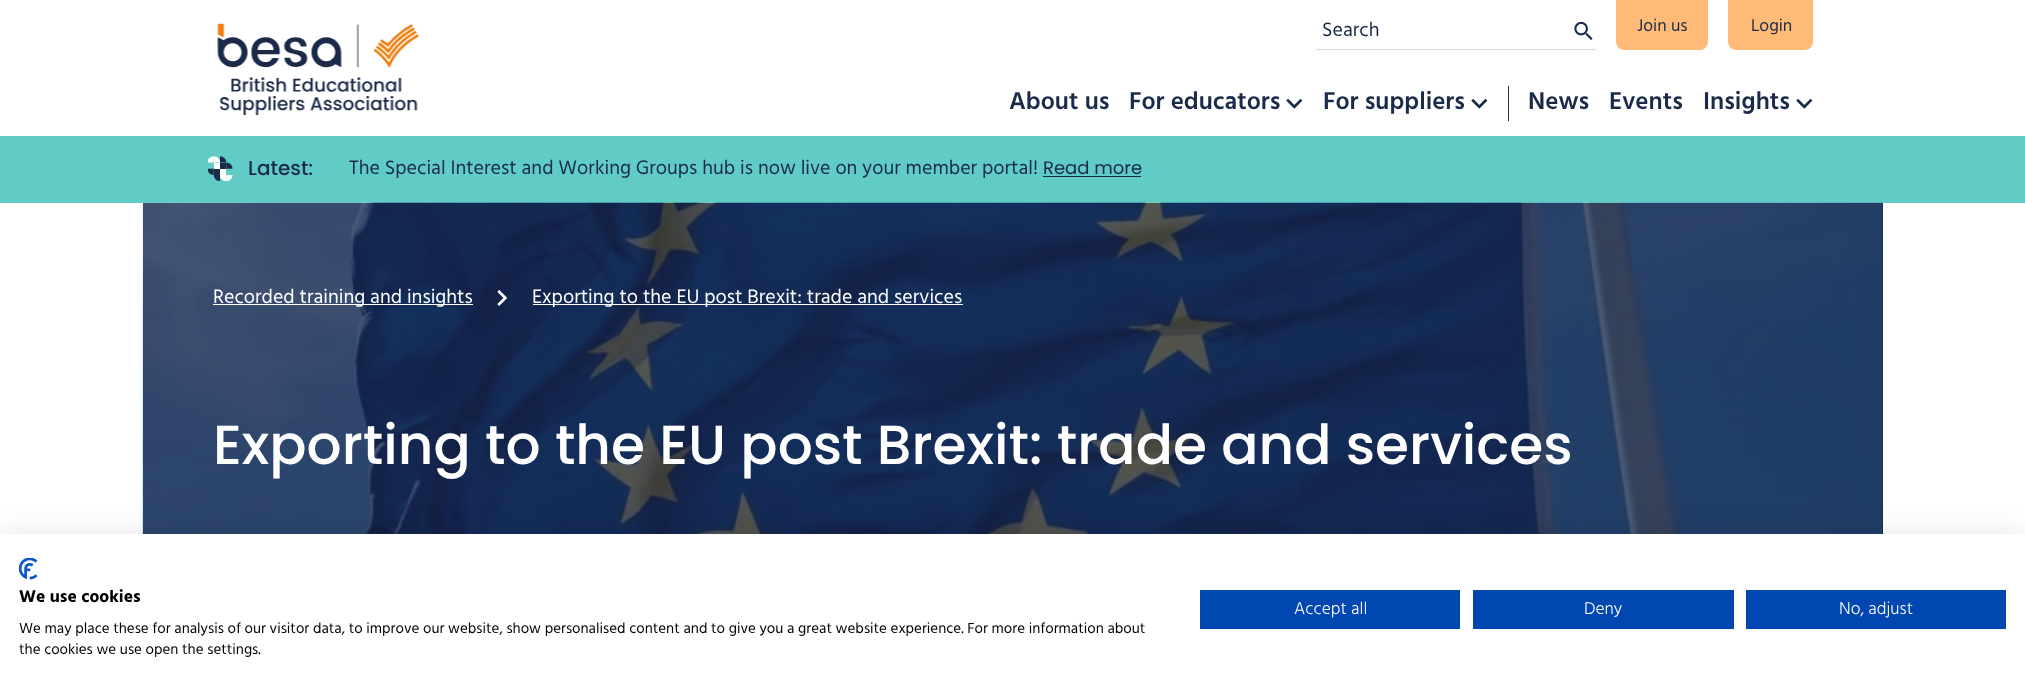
async function draw(canvas) {
  canvas.width = 2025
  canvas.height = 694
  const ctx = canvas.getContext('2d')
  ctx.miterLimit = 4
  ctx.fontKerning = 'normal'
  async function loadImage(src) {
    const img = new Image()
    img.src = src
    await img.decode()
    return img
  }

  ctx.fillStyle = '#fff'
  ctx.fillRect(0, 0, 2025, 694)
  ctx.drawImage(await loadImage('image0.png'), 217, 23, 203, 92)
  ctx.fillStyle = '#d9d9d9'
  ctx.fillRect(1316, 49, 280, 1)
  ctx.font = '20px Hind'
  ctx.fillStyle = '#1a2a49'
  ctx.fillText('Search', 1322, 36)
  ctx.drawImage(await loadImage('image1.png'), 1574, 21, 19, 19)
  ctx.fillStyle = '#ffba77'
  ctx.beginPath()
  ctx.roundRect(1616, 0, 92, 50, [0, 0, 8, 8])
  ctx.fill()
  ctx.font = '17.5px Hind'
  ctx.fillStyle = '#1a2a49'
  ctx.fillText('Join us', 1637, 31)
  ctx.fillStyle = '#ffba77'
  ctx.beginPath()
  ctx.roundRect(1728, 0, 85, 50, [0, 0, 8, 8])
  ctx.fill()
  ctx.fillStyle = '#1a2a49'
  ctx.fillText('Login', 1751, 31)
  ctx.font = '600 25px Hind'
  ctx.fillText('About us', 1009, 109)
  ctx.fillText('For educators', 1129, 109)
  ctx.drawImage(await loadImage('image2.png'), 1286, 99, 17, 10)
  ctx.fillText('For suppliers', 1323, 109)
  ctx.drawImage(await loadImage('image2.png'), 1471, 99, 17, 10)
  ctx.fillRect(1508, 86, 1, 35)
  ctx.fillText('News', 1528, 109)
  ctx.fillText('Events', 1609, 109)
  ctx.fillText('Insights', 1703, 109)
  ctx.drawImage(await loadImage('image2.png'), 1796, 99, 17, 10)
  ctx.fillStyle = '#61ccc6'
  ctx.fillRect(0, 136, 2025, 67)
  ctx.drawImage(await loadImage('image3.png'), 208, 156, 25, 25)
  ctx.font = '500 20px Poppins'
  ctx.fillStyle = '#1a2a49'
  ctx.fillText('Latest:', 248, 175)
  ctx.font = '20px Hind'
  ctx.fillText('The Special Interest and Working Groups hub is now live on your member portal!', 349, 174)
  ctx.font = '18px Poppins'
  ctx.fillText('Read more', 1043, 174)
  ctx.fillRect(1043, 176, 98, 1)
  ctx.fillRect(1882, 203, 1, 331)
  ctx.drawImage(await loadImage('image4.png'), 142, 202, 1741, 332)
  ctx.fillStyle = '#1a2a49bf'
  ctx.fillRect(143, 203, 1740, 331)
  ctx.fillStyle = '#fff'
  ctx.fillRect(213, 304, 260, 1)
  ctx.font = '20px Hind'
  ctx.fillText('Recorded training and insights', 213, 303)
  ctx.drawImage(await loadImage('image5.png'), 497, 290, 10, 16)
  ctx.fillRect(533, 304, 430, 1)
  ctx.fillText('Exporting to the EU post Brexit: trade and services', 532, 303)
  ctx.font = '500 55px Poppins'
  ctx.fillText('Exporting to the EU post Brexit: trade and services', 213, 464)
  ctx.fillStyle = '#0000001a'
  ctx.filter = 'blur(15px)'
  ctx.beginPath()
  ctx.rect(0, 534, 2025, 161)
  ctx.fill()
  ctx.filter = 'none'
  ctx.fillStyle = '#fff'
  ctx.fillRect(0, 534, 2025, 160)
  ctx.drawImage(await loadImage('image6.png'), 19, 558, 19, 22)
  ctx.font = 'bold 17.5px Hind'
  ctx.fillStyle = '#000'
  ctx.fillText('We use cookies', 19, 602)
  ctx.font = '15px Hind'
  ctx.fillText('We may place these for analysis of our visitor data, to improve our website, show personalised content and to give you a great website experience. For more information about', 19, 633)
  ctx.fillText('the cookies we use open the settings.', 19, 654)
  ctx.fillStyle = '#0047b2'
  ctx.fillRect(1200, 590, 260, 39)
  ctx.font = '300 17.5px Hind'
  ctx.fillStyle = '#fff'
  ctx.fillText('Accept all', 1294, 614)
  ctx.fillStyle = '#0047b2'
  ctx.fillRect(1473, 590, 261, 39)
  ctx.fillStyle = '#fff'
  ctx.fillText('Deny', 1584, 614)
  ctx.fillStyle = '#0047b2'
  ctx.fillRect(1746, 590, 260, 39)
  ctx.fillStyle = '#fff'
  ctx.fillText('No, adjust', 1839, 614)
}

draw(document.querySelector('canvas'))
